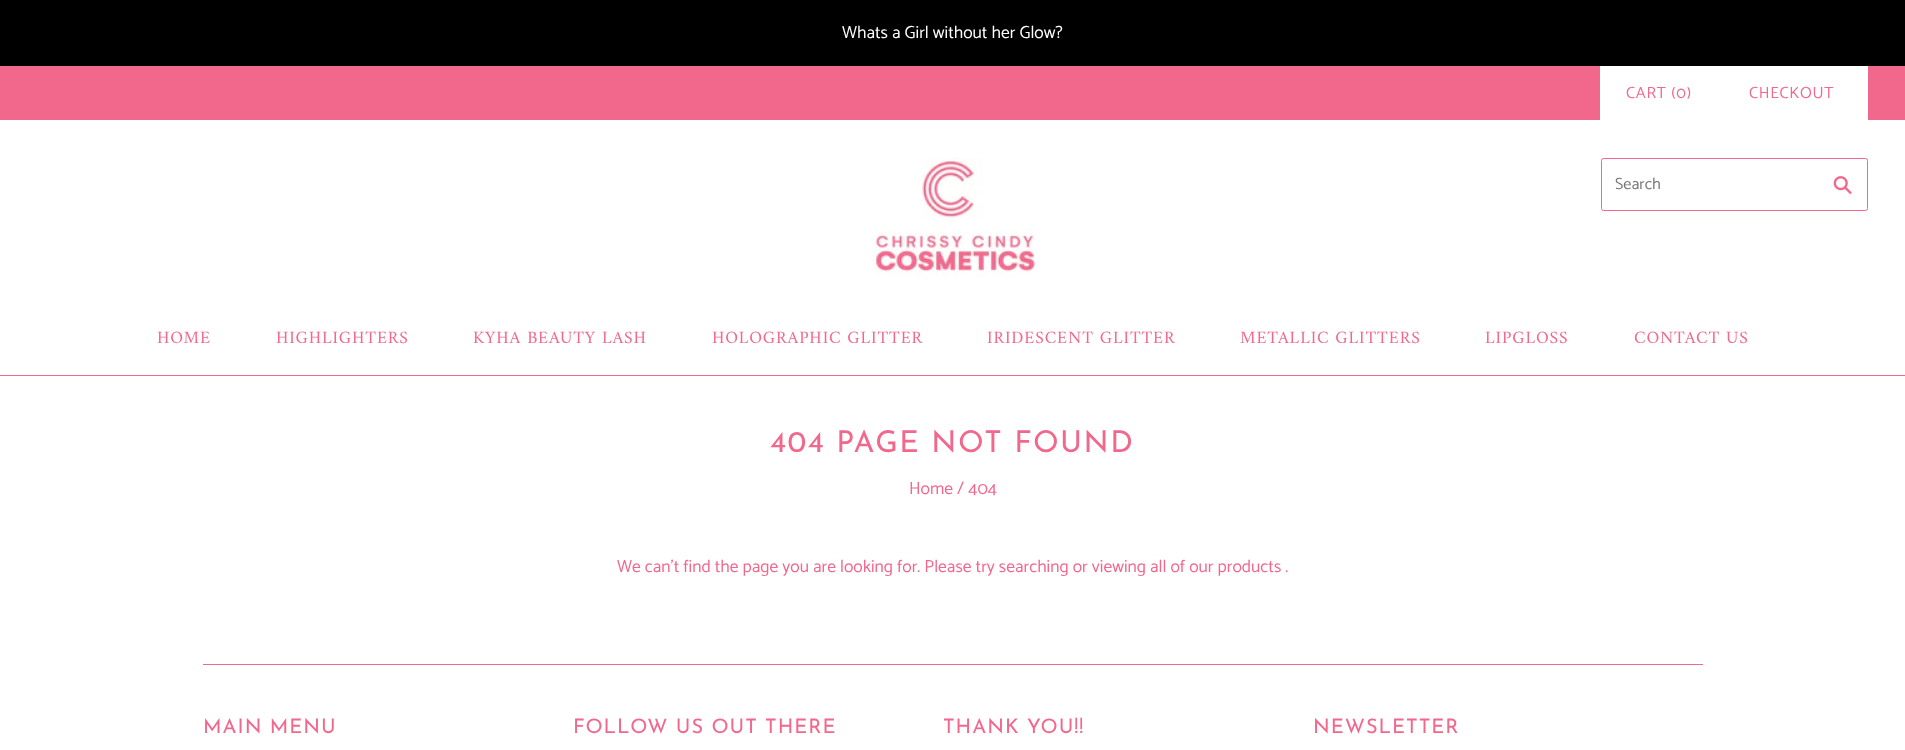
async function draw(canvas) {
  canvas.width = 1905
  canvas.height = 750
  const ctx = canvas.getContext('2d')
  ctx.miterLimit = 4
  ctx.fontKerning = 'normal'
  async function loadImage(src) {
    const img = new Image()
    img.src = src
    await img.decode()
    return img
  }

  ctx.fillStyle = '#fff'
  ctx.fillRect(0, 0, 1905, 750)
  ctx.fillStyle = '#000'
  ctx.fillRect(0, 0, 1905, 66)
  ctx.font = '17.5px Catamaran'
  ctx.fillStyle = '#fff'
  ctx.fillText('Whats a Girl without her Glow?', 842, 38)
  ctx.fillStyle = '#f2688d'
  ctx.fillRect(0, 375, 1905, 1)
  ctx.fillRect(0, 66, 1905, 54)
  ctx.fillStyle = '#fff'
  ctx.fillRect(1600, 66, 268, 54)
  ctx.letterSpacing = '0.75px'
  ctx.font = '16.25px Catamaran'
  ctx.fillStyle = '#f2688d'
  ctx.fillText('CART (0)', 1626, 98)
  ctx.fillText('CHECKOUT', 1749, 98)
  ctx.drawImage(await loadImage('image0.png'), 872, 157, 168, 120)
  ctx.beginPath()
  ctx.roundRect(1601.5, 158.5, 266, 52, 2)
  ctx.strokeStyle = '#f2688d'
  ctx.stroke()
  ctx.letterSpacing = '0px'
  ctx.fillStyle = '#757575'
  ctx.fillText('Search', 1615, 189)
  ctx.drawImage(await loadImage('image1.png'), 1833, 176, 19, 19)
  ctx.letterSpacing = '0.9px'
  ctx.font = '17.5px Amiri'
  ctx.fillStyle = '#f2688d'
  ctx.fillText('HOME', 157, 343)
  ctx.fillText('HIGHLIGHTERS', 276, 343)
  ctx.fillText('KYHA BEAUTY LASH', 473, 343)
  ctx.fillText('HOLOGRAPHIC GLITTER', 712, 343)
  ctx.fillText('IRIDESCENT GLITTER', 987, 343)
  ctx.fillText('METALLIC GLITTERS', 1240, 343)
  ctx.fillText('LIPGLOSS', 1485, 343)
  ctx.fillText('CONTACT US', 1634, 343)
  ctx.letterSpacing = '1.5px'
  ctx.font = '30px Josefin Sans'
  ctx.fillText('404 PAGE NOT FOUND', 770, 452)
  ctx.letterSpacing = '0px'
  ctx.font = '17.5px Catamaran'
  ctx.fillText('Home / 404', 909, 494)
  ctx.fillText('We can\'t find the page you are looking for. Please try searching or viewing all of our products .', 617, 572)
  ctx.fillRect(203, 664, 1500, 1)
  ctx.letterSpacing = '1px'
  ctx.font = '20px Josefin Sans'
  ctx.fillText('MAIN MENU', 203, 733)
  ctx.fillText('FOLLOW US OUT THERE', 573, 733)
  ctx.fillText('THANK YOU!!', 943, 733)
  ctx.fillText('NEWSLETTER', 1313, 733)
}

draw(document.querySelector('canvas'))
